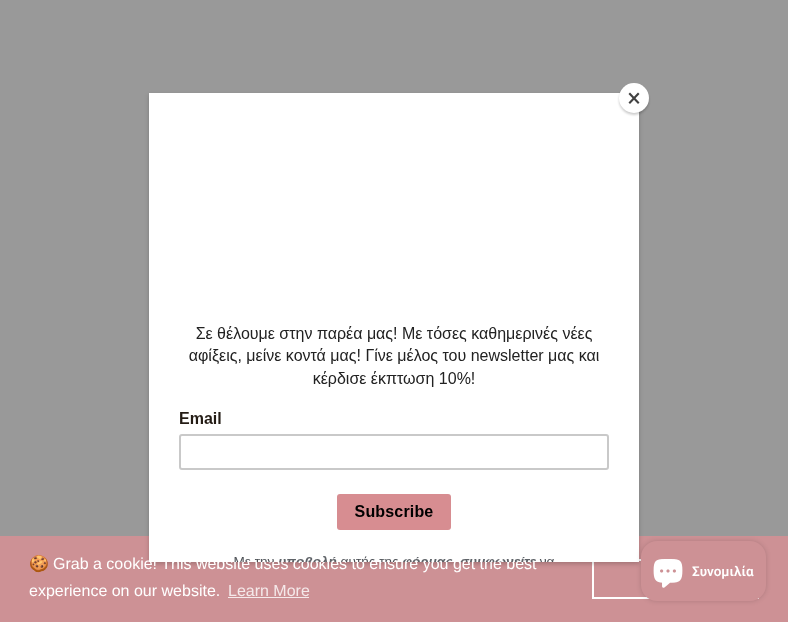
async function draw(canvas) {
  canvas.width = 788
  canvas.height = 622
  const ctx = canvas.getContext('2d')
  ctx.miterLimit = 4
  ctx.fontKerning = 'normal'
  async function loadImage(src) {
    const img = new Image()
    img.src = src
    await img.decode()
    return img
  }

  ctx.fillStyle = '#999'
  ctx.fillRect(0, 0, 788, 622)
  ctx.fillStyle = '#cd9195'
  ctx.fillRect(0, 536, 788, 86)
  ctx.strokeStyle = '#fff'
  ctx.lineWidth = 2
  ctx.strokeRect(593, 560, 165, 38)
  ctx.fillStyle = '#00000033'
  ctx.filter = 'blur(2px)'
  ctx.beginPath()
  ctx.rect(149, 95, 490, 469)
  ctx.fill()
  ctx.filter = 'none'
  ctx.font = '16px Liberation Sans'
  ctx.fillStyle = '#fff'
  ctx.fillText('Grab a cookie! This website uses cookies to ensure you get the best', 53, 569)
  ctx.drawImage(await loadImage('image0.png'), 149, 93, 490, 469)
  ctx.fillStyle = '#00000033'
  ctx.filter = 'blur(1px)'
  ctx.beginPath()
  ctx.roundRect(619, 85, 30, 30, 15)
  ctx.fill()
  ctx.filter = 'none'
  ctx.fillStyle = '#fff'
  ctx.beginPath()
  ctx.arc(634, 98, 15, 0, 2 * Math.PI)
  ctx.fill()
  ctx.fillStyle = '#414141'
  ctx.beginPath()
  ctx.moveTo(638, 92.5)
  ctx.lineTo(639.5, 94)
  ctx.lineTo(630, 104)
  ctx.lineTo(628.5, 102.5)
  ctx.closePath()
  ctx.fill()
  ctx.beginPath()
  ctx.moveTo(628.5, 94)
  ctx.lineTo(630, 92.5)
  ctx.lineTo(639.5, 102.5)
  ctx.lineTo(638, 104)
  ctx.closePath()
  ctx.fill()
  ctx.font = '16px Noto Color Emoji'
  ctx.fillStyle = '#fff'
  ctx.fillText('🍪', 29, 569)
  ctx.font = '16px Liberation Sans'
  ctx.fillText('experience on our website.', 29, 596)
  ctx.fillStyle = '#f5e9ea'
  ctx.fillText('Learn More', 228, 596)
  ctx.fillRect(228, 597, 81, 1)
  ctx.fillStyle = '#00000026'
  ctx.filter = 'blur(2.5px)'
  ctx.beginPath()
  ctx.roundRect(641, 541, 125, 60, 16)
  ctx.fill()
  ctx.filter = 'none'
  ctx.fillStyle = '#cd9195'
  ctx.beginPath()
  ctx.roundRect(641, 541, 125, 60, 16)
  ctx.fill()
  ctx.drawImage(await loadImage('image1.png'), 653, 559, 30, 29)
  ctx.font = '600 13.5px Roboto'
  ctx.fillStyle = '#fff'
  ctx.fillText('Συνομιλία', 692, 576)
}

draw(document.querySelector('canvas'))
